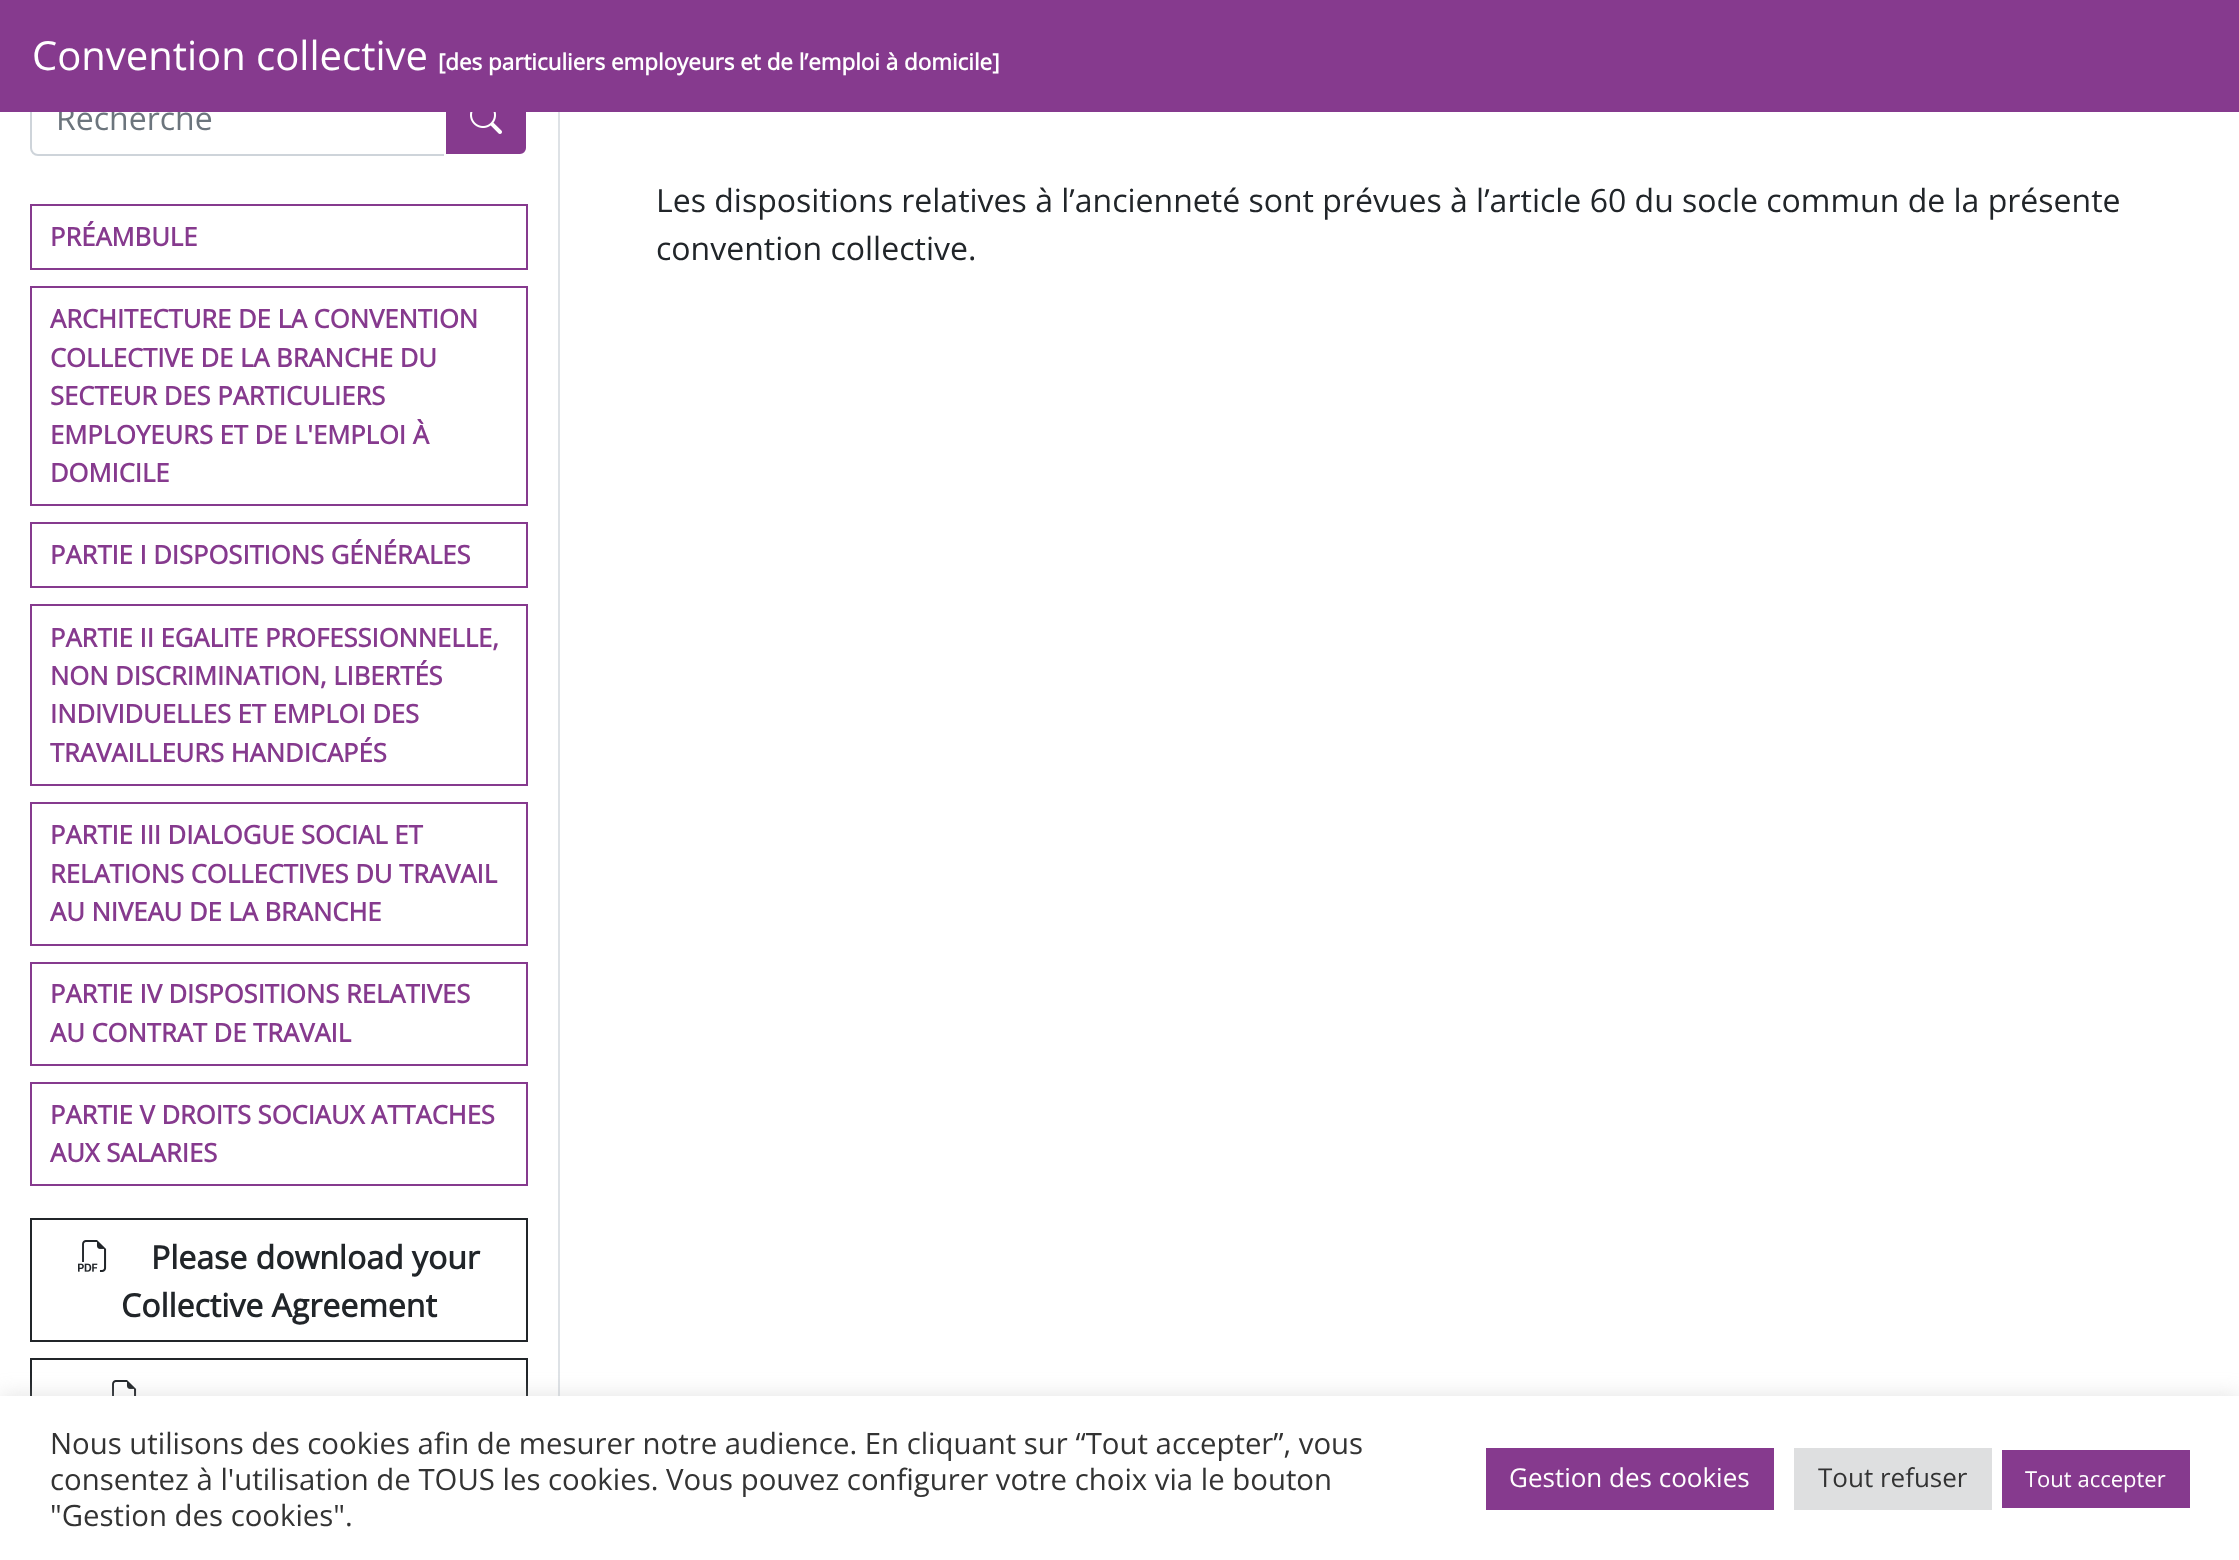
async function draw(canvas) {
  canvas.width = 2239
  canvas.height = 1560
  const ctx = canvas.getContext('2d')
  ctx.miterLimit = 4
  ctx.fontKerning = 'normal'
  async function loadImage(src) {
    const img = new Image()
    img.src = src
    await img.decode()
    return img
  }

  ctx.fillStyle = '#fff'
  ctx.fillRect(0, 0, 2239, 1560)
  ctx.beginPath()
  ctx.roundRect(31, 81, 414, 74, [7, 0, 0, 7])
  ctx.strokeStyle = '#ced4da'
  ctx.lineWidth = 2
  ctx.stroke()
  ctx.font = '32px Open Sans'
  ctx.fillStyle = '#6c757d'
  ctx.fillText('Recherche', 56, 130)
  ctx.fillStyle = '#863a8e'
  ctx.beginPath()
  ctx.roundRect(445, 81, 82, 74, [0, 7, 7, 0])
  ctx.fill()
  ctx.strokeStyle = '#fff'
  ctx.stroke()
  ctx.fillRect(0, 0, 2239, 112)
  ctx.font = '40px Open Sans'
  ctx.fillStyle = '#fff'
  ctx.fillText('Convention collective', 32, 70)
  ctx.font = 'bold 22.4px Open Sans'
  ctx.fillText('[des particuliers employeurs et de l’emploi à domicile]', 438, 70)
  ctx.fillStyle = '#dee2e6'
  ctx.fillRect(558, 112, 2, 1284)
  ctx.drawImage(await loadImage('image0.png'), 470, 112, 32, 22)
  ctx.strokeStyle = '#863a8e'
  ctx.strokeRect(31, 205, 496, 64)
  ctx.font = 'bold 25.6px Open Sans'
  ctx.fillStyle = '#863a8e'
  ctx.fillText('PRÉAMBULE', 50, 246)
  ctx.strokeRect(31, 287, 496, 218)
  ctx.fillText('ARCHITECTURE DE LA CONVENTION', 50, 328)
  ctx.fillText('COLLECTIVE DE LA BRANCHE DU', 50, 367)
  ctx.fillText('SECTEUR DES PARTICULIERS', 50, 405)
  ctx.fillText('EMPLOYEURS ET DE L\'EMPLOI À', 50, 444)
  ctx.fillText('DOMICILE', 50, 482)
  ctx.strokeRect(31, 523, 496, 64)
  ctx.fillText('PARTIE I DISPOSITIONS GÉNÉRALES', 50, 564)
  ctx.strokeRect(31, 605, 496, 180)
  ctx.fillText('PARTIE II EGALITE PROFESSIONNELLE,', 50, 647)
  ctx.fillText('NON DISCRIMINATION, LIBERTÉS', 50, 685)
  ctx.fillText('INDIVIDUELLES ET EMPLOI DES', 50, 723)
  ctx.fillText('TRAVAILLEURS HANDICAPÉS', 50, 762)
  ctx.strokeRect(31, 803, 496, 142)
  ctx.fillText('PARTIE III DIALOGUE SOCIAL ET', 50, 844)
  ctx.fillText('RELATIONS COLLECTIVES DU TRAVAIL', 50, 883)
  ctx.fillText('AU NIVEAU DE LA BRANCHE', 50, 921)
  ctx.strokeRect(31, 963, 496, 102)
  ctx.fillText('PARTIE IV DISPOSITIONS RELATIVES', 50, 1003)
  ctx.fillText('AU CONTRAT DE TRAVAIL', 50, 1042)
  ctx.strokeRect(31, 1083, 496, 102)
  ctx.fillText('PARTIE V DROITS SOCIAUX ATTACHES', 50, 1124)
  ctx.fillText('AUX SALARIES', 50, 1162)
  ctx.strokeStyle = '#212529'
  ctx.strokeRect(31, 1219, 496, 122)
  ctx.drawImage(await loadImage('image1.png'), 78, 1240, 29, 32)
  ctx.font = 'bold 32px Open Sans'
  ctx.fillStyle = '#212529'
  ctx.fillText('Please download your', 151, 1269)
  ctx.fillText('Collective Agreement', 121, 1317)
  ctx.strokeRect(31, 1359, 496, 170)
  ctx.drawImage(await loadImage('image2.png'), 112, 1380, 25, 16)
  ctx.font = '32px Open Sans'
  ctx.fillText('Les dispositions relatives à l’ancienneté sont prévues à l’article 60 du socle commun de la présente', 656, 212)
  ctx.fillText('convention collective.', 656, 260)
  ctx.fillStyle = '#acabab4d'
  ctx.filter = 'blur(10px)'
  ctx.beginPath()
  ctx.rect(0, 1394, 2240, 164)
  ctx.fill()
  ctx.filter = 'none'
  ctx.fillStyle = '#fff'
  ctx.fillRect(0, 1396, 2239, 164)
  ctx.font = '29.35px Open Sans'
  ctx.fillStyle = '#333'
  ctx.fillText('Nous utilisons des cookies afin de mesurer notre audience. En cliquant sur “Tout accepter”, vous', 50, 1454)
  ctx.fillText('consentez à l\'utilisation de TOUS les cookies. Vous pouvez configurer votre choix via le bouton', 50, 1490)
  ctx.fillText('"Gestion des cookies".', 50, 1526)
  ctx.fillStyle = '#863a8e'
  ctx.fillRect(1486, 1448, 288, 62)
  ctx.font = '26px Open Sans'
  ctx.fillStyle = '#fff'
  ctx.fillText('Gestion des cookies', 1509, 1487)
  ctx.fillStyle = '#dedfe0'
  ctx.fillRect(1794, 1448, 198, 62)
  ctx.fillStyle = '#333'
  ctx.fillText('Tout refuser', 1818, 1487)
  ctx.fillStyle = '#863a8e'
  ctx.fillRect(2002, 1450, 188, 58)
  ctx.font = '22px Open Sans'
  ctx.fillStyle = '#fff'
  ctx.fillText('Tout accepter', 2025, 1487)
}

draw(document.querySelector('canvas'))
